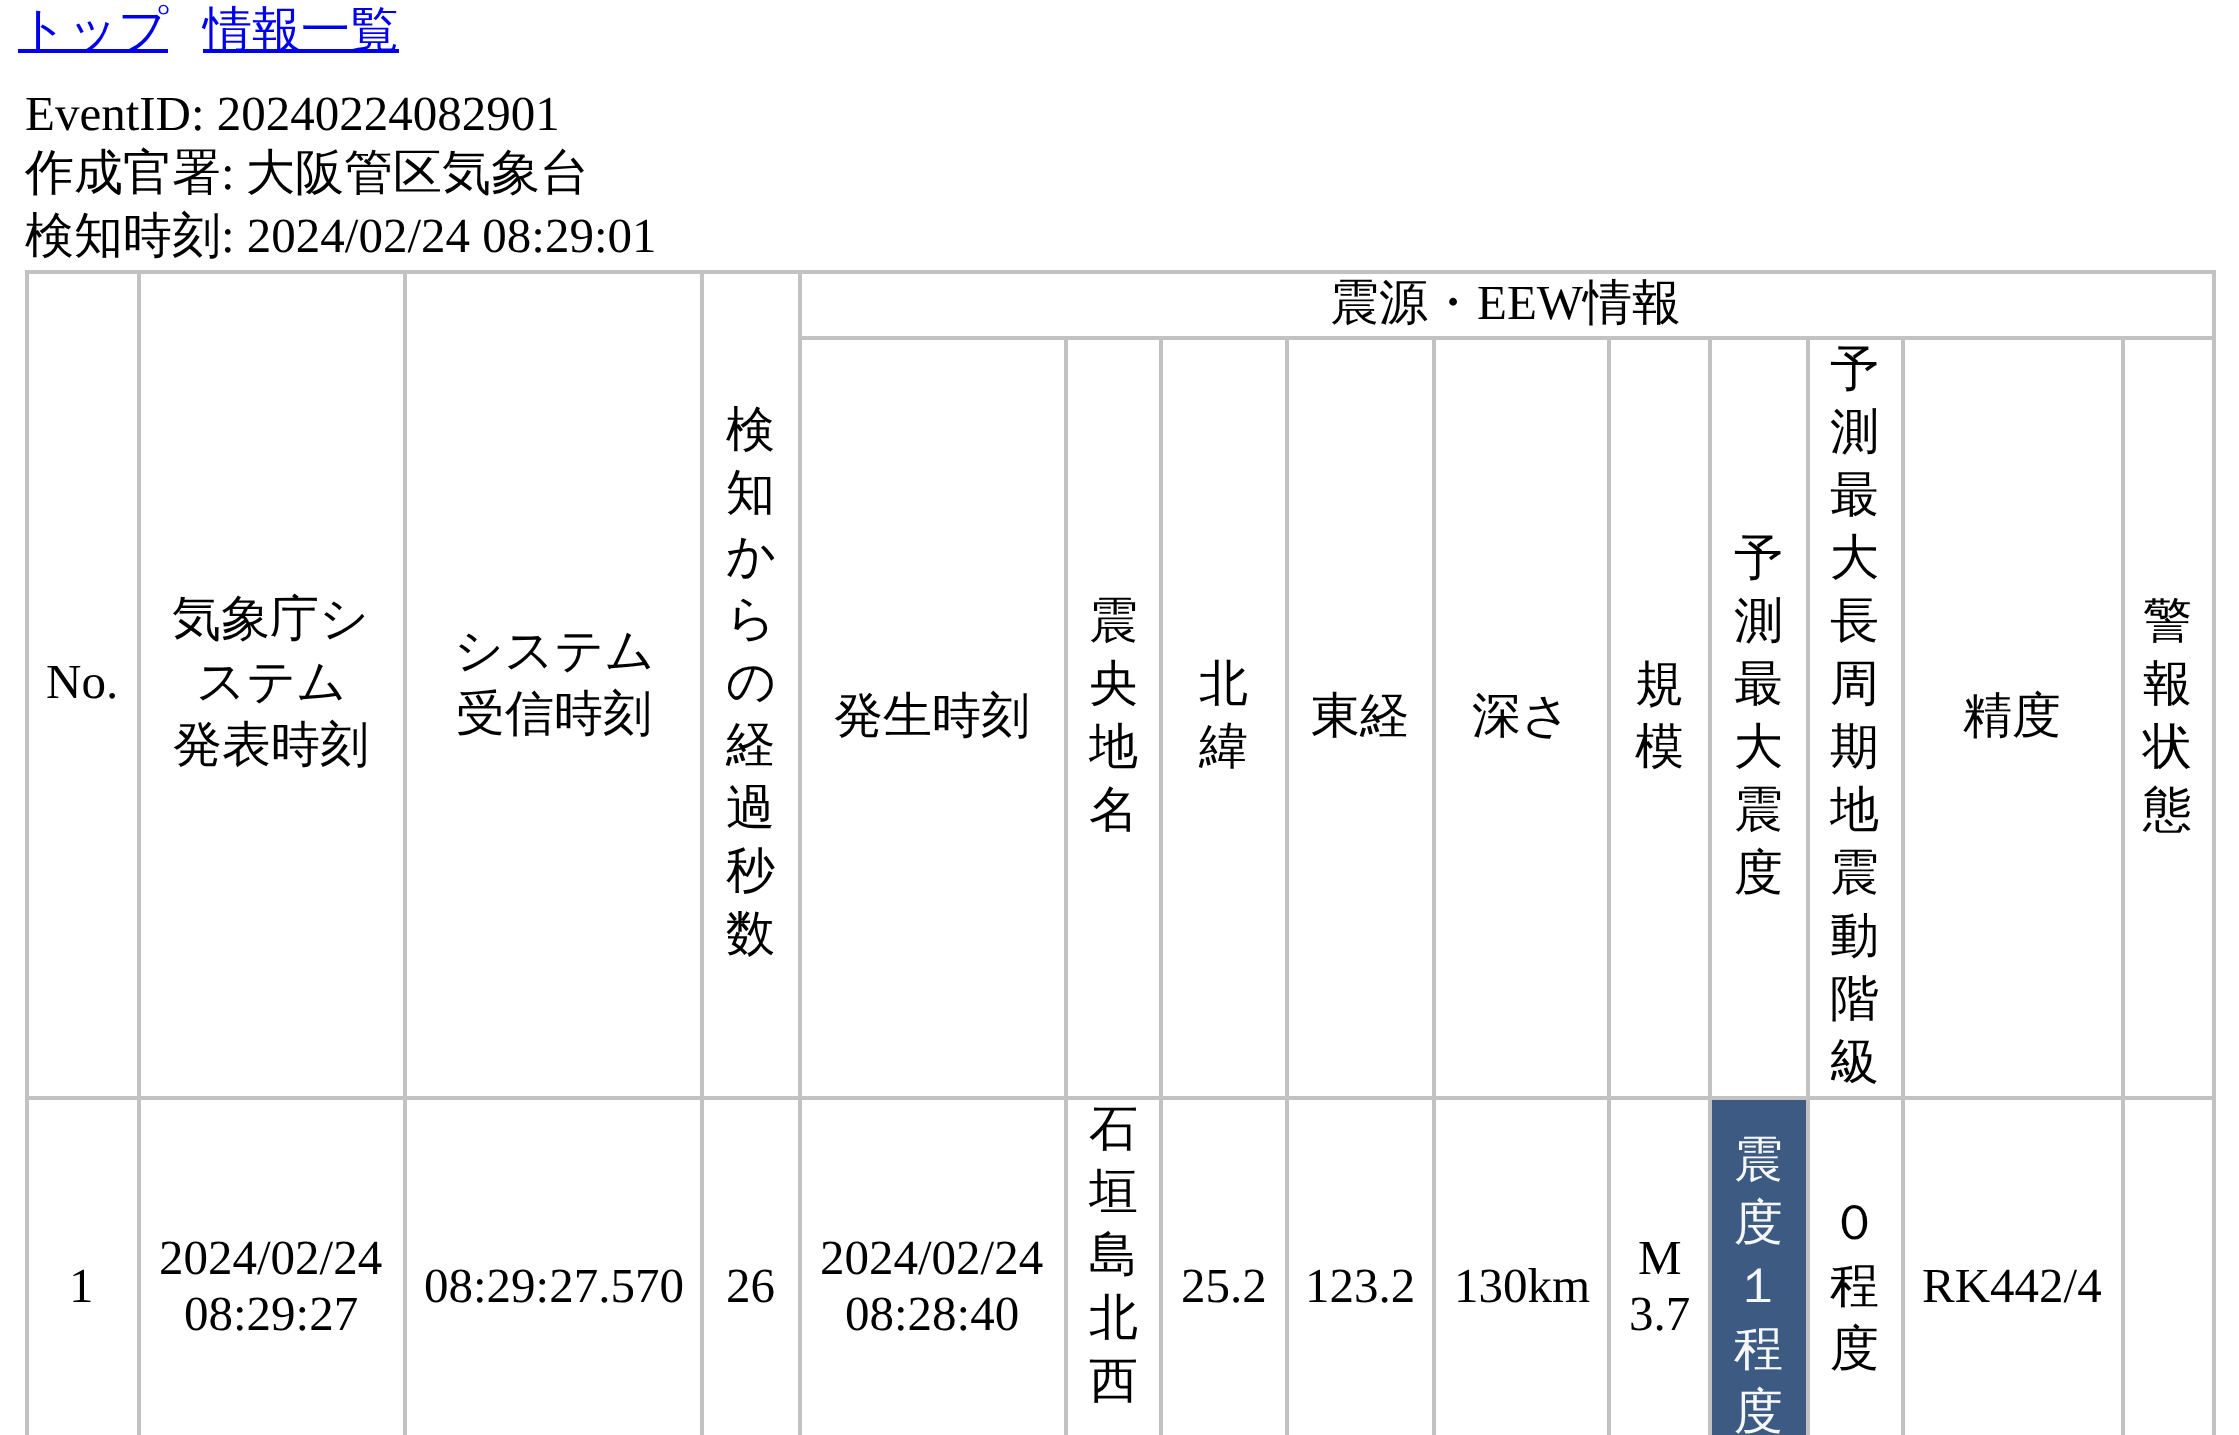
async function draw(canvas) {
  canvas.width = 2239
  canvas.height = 1435
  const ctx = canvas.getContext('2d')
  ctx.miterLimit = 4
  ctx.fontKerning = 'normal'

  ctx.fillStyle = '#fff'
  ctx.fillRect(0, 0, 2239, 1435)
  ctx.fillStyle = '#00e'
  ctx.fillRect(18, 49, 150, 4)
  ctx.font = '500 49px WenQuanYi Zen Hei'
  ctx.fillText('トップ', 18, 46)
  ctx.fillRect(203, 49, 196, 4)
  ctx.fillText('情報一覧', 203, 46)
  ctx.font = '49px Liberation Serif'
  ctx.fillStyle = '#000'
  ctx.fillText('EventID: 20240224082901', 25, 130)
  ctx.font = '500 49px WenQuanYi Zen Hei'
  ctx.fillText('作成官署', 25, 189)
  ctx.font = '49px Liberation Serif'
  ctx.fillText(':', 221, 189)
  ctx.font = '500 49px WenQuanYi Zen Hei'
  ctx.fillText('大阪管区気象台', 246, 189)
  ctx.fillText('検知時刻', 25, 252)
  ctx.font = '49px Liberation Serif'
  ctx.fillText(': 2024/02/24 08:29:01', 221, 252)
  ctx.fillStyle = '#c2c2c2'
  ctx.fillRect(798, 270, 1418, 4)
  ctx.fillRect(2121, 336, 95, 4)
  ctx.fillRect(2121, 1096, 95, 4)
  ctx.fillRect(2212, 1096, 4, 339)
  ctx.fillRect(2212, 336, 4, 763)
  ctx.fillRect(2212, 270, 4, 70)
  ctx.fillRect(2121, 1096, 4, 339)
  ctx.fillRect(1901, 1096, 224, 4)
  ctx.fillRect(2121, 336, 4, 763)
  ctx.fillRect(1901, 336, 224, 4)
  ctx.fillRect(1901, 1096, 4, 339)
  ctx.fillRect(1806, 1096, 98, 4)
  ctx.fillRect(1901, 336, 4, 763)
  ctx.fillRect(1806, 336, 98, 4)
  ctx.fillRect(1806, 1096, 4, 339)
  ctx.fillRect(1708, 1096, 102, 4)
  ctx.fillRect(1806, 336, 4, 763)
  ctx.fillRect(1708, 336, 102, 4)
  ctx.fillRect(1708, 1096, 4, 339)
  ctx.fillRect(1607, 1096, 105, 4)
  ctx.fillRect(1708, 336, 4, 763)
  ctx.fillRect(1607, 336, 105, 4)
  ctx.fillRect(1607, 1096, 4, 339)
  ctx.fillRect(1432, 1096, 178, 4)
  ctx.fillRect(1607, 336, 4, 763)
  ctx.fillRect(1432, 336, 178, 4)
  ctx.fillRect(1432, 1096, 4, 339)
  ctx.fillRect(1285, 1096, 150, 4)
  ctx.fillRect(1432, 336, 4, 763)
  ctx.fillRect(1285, 336, 150, 4)
  ctx.fillRect(1285, 1096, 4, 339)
  ctx.fillRect(1159, 1096, 129, 4)
  ctx.fillRect(1285, 336, 4, 763)
  ctx.fillRect(1159, 336, 129, 4)
  ctx.fillRect(1159, 1096, 4, 339)
  ctx.fillRect(1064, 1096, 98, 4)
  ctx.fillRect(1159, 336, 4, 763)
  ctx.fillRect(1064, 336, 98, 4)
  ctx.fillRect(1064, 1096, 4, 339)
  ctx.fillRect(798, 1096, 270, 4)
  ctx.fillRect(1064, 336, 4, 763)
  ctx.fillRect(798, 336, 270, 4)
  ctx.fillRect(798, 1096, 4, 339)
  ctx.fillRect(700, 1096, 102, 4)
  ctx.fillRect(798, 336, 4, 763)
  ctx.fillRect(798, 270, 4, 70)
  ctx.font = '500 49px WenQuanYi Zen Hei'
  ctx.fillStyle = '#000'
  ctx.fillText('震源・', 1330, 319)
  ctx.font = '49px Liberation Serif'
  ctx.fillText('EEW', 1477, 319)
  ctx.font = '500 49px WenQuanYi Zen Hei'
  ctx.fillText('情報', 1583, 319)
  ctx.fillStyle = '#c2c2c2'
  ctx.fillRect(700, 270, 102, 4)
  ctx.fillRect(700, 1096, 4, 339)
  ctx.fillRect(403, 1096, 301, 4)
  ctx.fillRect(700, 270, 4, 829)
  ctx.fillRect(403, 270, 301, 4)
  ctx.fillRect(403, 1096, 4, 339)
  ctx.fillRect(137, 1096, 269, 4)
  ctx.fillRect(403, 270, 4, 829)
  ctx.fillRect(137, 270, 269, 4)
  ctx.fillRect(137, 1096, 4, 339)
  ctx.fillRect(25, 1096, 115, 4)
  ctx.fillRect(137, 270, 4, 829)
  ctx.fillRect(25, 270, 115, 4)
  ctx.fillRect(25, 1096, 4, 339)
  ctx.fillRect(25, 270, 4, 829)
  ctx.font = '49px Liberation Serif'
  ctx.fillStyle = '#000'
  ctx.fillText('No.', 46, 698)
  ctx.font = '500 49px WenQuanYi Zen Hei'
  ctx.fillText('気象庁シ', 172, 635)
  ctx.fillText('ステム', 196, 698)
  ctx.fillText('発表時刻', 173, 761)
  ctx.fillText('システム', 454, 667)
  ctx.fillText('受信時刻', 456, 730)
  ctx.fillText('検', 726, 446)
  ctx.fillText('知', 726, 509)
  ctx.fillText('か', 726, 572)
  ctx.fillText('ら', 726, 635)
  ctx.fillText('の', 726, 698)
  ctx.fillText('経', 726, 761)
  ctx.fillText('過', 726, 824)
  ctx.fillText('秒', 726, 887)
  ctx.fillText('数', 726, 950)
  ctx.fillText('発生時刻', 834, 732)
  ctx.fillText('震', 1089, 637)
  ctx.fillText('央', 1089, 700)
  ctx.fillText('地', 1089, 763)
  ctx.fillText('名', 1089, 826)
  ctx.fillText('北', 1199, 700)
  ctx.fillText('緯', 1199, 763)
  ctx.fillText('東経', 1311, 732)
  ctx.fillText('深さ', 1472, 732)
  ctx.fillText('規', 1635, 700)
  ctx.fillText('模', 1635, 763)
  ctx.fillText('予', 1734, 574)
  ctx.fillText('測', 1734, 637)
  ctx.fillText('最', 1734, 700)
  ctx.fillText('大', 1734, 763)
  ctx.fillText('震', 1734, 826)
  ctx.fillText('度', 1734, 889)
  ctx.fillText('予', 1830, 385)
  ctx.fillText('測', 1830, 448)
  ctx.fillText('最', 1830, 511)
  ctx.fillText('大', 1830, 574)
  ctx.fillText('長', 1830, 637)
  ctx.fillText('周', 1830, 700)
  ctx.fillText('期', 1830, 763)
  ctx.fillText('地', 1830, 826)
  ctx.fillText('震', 1830, 889)
  ctx.fillText('動', 1830, 952)
  ctx.fillText('階', 1830, 1015)
  ctx.fillText('級', 1830, 1078)
  ctx.fillText('精度', 1963, 732)
  ctx.fillText('警', 2143, 637)
  ctx.fillText('報', 2143, 700)
  ctx.fillText('状', 2143, 763)
  ctx.fillText('態', 2143, 826)
  ctx.font = '49px Liberation Serif'
  ctx.fillText('1', 69, 1302)
  ctx.fillText('2024/02/24', 159, 1274)
  ctx.fillText('08:29:27', 184, 1330)
  ctx.fillText('08:29:27.570', 424, 1302)
  ctx.fillText('26', 726, 1302)
  ctx.fillText('2024/02/24', 820, 1274)
  ctx.fillText('08:28:40', 845, 1330)
  ctx.font = '500 49px WenQuanYi Zen Hei'
  ctx.fillText('石', 1089, 1145)
  ctx.fillText('垣', 1089, 1208)
  ctx.fillText('島', 1089, 1271)
  ctx.fillText('北', 1089, 1334)
  ctx.fillText('西', 1089, 1397)
  ctx.font = '49px Liberation Serif'
  ctx.fillText('25.2', 1181, 1302)
  ctx.fillText('123.2', 1305, 1302)
  ctx.fillText('130km', 1454, 1302)
  ctx.fillText('M', 1638, 1274)
  ctx.fillText('3.7', 1629, 1330)
  ctx.fillStyle = '#3c5a82'
  ctx.fillRect(1712, 1100, 94, 335)
  ctx.font = '500 49px WenQuanYi Zen Hei'
  ctx.fillStyle = '#f5f7f9'
  ctx.fillText('震', 1734, 1176)
  ctx.fillText('度', 1734, 1239)
  ctx.fillText('１', 1734, 1302)
  ctx.fillText('程', 1734, 1365)
  ctx.fillText('度', 1734, 1428)
  ctx.fillStyle = '#000'
  ctx.fillText('０', 1830, 1239)
  ctx.fillText('程', 1830, 1302)
  ctx.fillText('度', 1830, 1365)
  ctx.font = '49px Liberation Serif'
  ctx.fillText('RK442/4', 1922, 1302)
}

draw(document.querySelector('canvas'))
